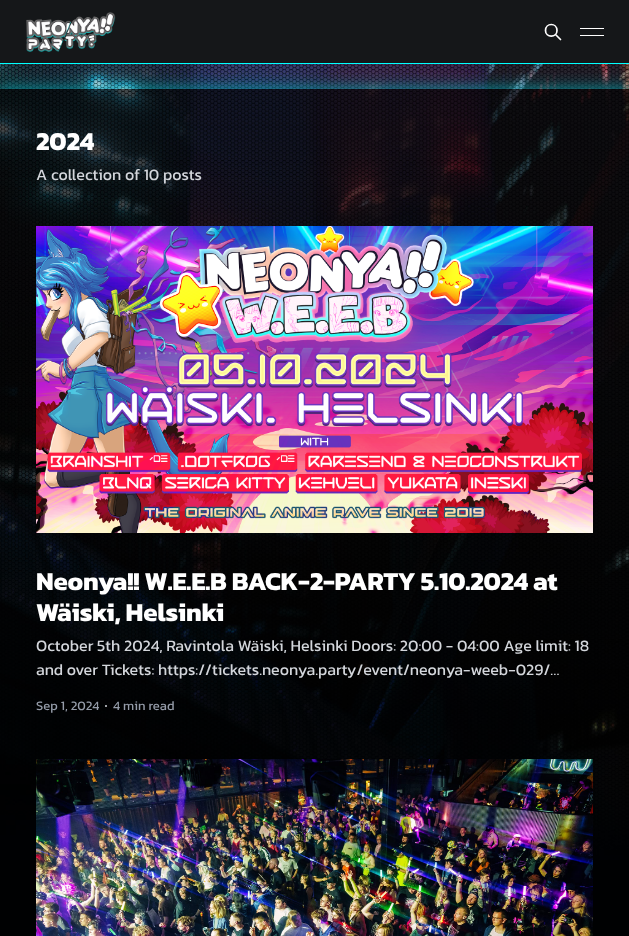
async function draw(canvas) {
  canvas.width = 629
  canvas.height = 936
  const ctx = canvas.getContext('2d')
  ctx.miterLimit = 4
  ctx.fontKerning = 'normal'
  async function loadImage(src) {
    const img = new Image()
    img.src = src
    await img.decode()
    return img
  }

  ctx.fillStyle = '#fff'
  ctx.fillRect(0, 0, 629, 936)
  ctx.fillStyle = '#000102'
  ctx.fillRect(0, 89, 629, 847)
  ctx.fillStyle = '#151719'
  ctx.fillRect(0, 0, 629, 63)
  ctx.drawImage(await loadImage('image1.png'), 0, 64, 629, 796)
  ctx.save()
  ctx.beginPath()
  ctx.rect(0, 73, 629, 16)
  ctx.clip()
  ctx.fillStyle = '#00b2bbc2'
  ctx.filter = 'blur(8px)'
  ctx.beginPath()
  ctx.rect(-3, 88, 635, 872)
  ctx.fill()
  ctx.filter = 'none'
  ctx.restore()
  ctx.fillStyle = '#0ff'
  ctx.fillRect(0, 63, 629, 1)
  ctx.drawImage(await loadImage('image0.png'), 26, 12, 90, 40)
  ctx.beginPath()
  ctx.moveTo(560.5, 39.5)
  ctx.lineTo(555.5, 34.5)
  ctx.moveTo(557, 30.5)
  ctx.bezierCurveTo(557, 38, 545.5, 38, 545.5, 30.5)
  ctx.bezierCurveTo(545.5, 22.5, 557, 22.5, 557, 30.5)
  ctx.closePath()
  ctx.strokeStyle = '#fff'
  ctx.lineWidth = 1.7
  ctx.lineCap = 'round'
  ctx.lineJoin = 'round'
  ctx.stroke()
  ctx.fillStyle = '#fff'
  ctx.fillRect(580, 28, 24, 1)
  ctx.fillRect(580, 35, 24, 1)
  ctx.letterSpacing = '-0.25px'
  ctx.font = 'bold 26px Kanit'
  ctx.fillText('2024', 36, 150)
  ctx.letterSpacing = '0px'
  ctx.font = '16px Kanit'
  ctx.fillStyle = '#d3d6db'
  ctx.fillText('A collection of 10 posts', 36, 180)
  ctx.drawImage(await loadImage('image2.png'), 36, 226, 557, 307)
  ctx.letterSpacing = '-0.25px'
  ctx.font = 'bold 26px Kanit'
  ctx.fillStyle = '#fff'
  ctx.fillText('Neonya!! W.E.E.B BACK-2-PARTY 5.10.2024 at', 36, 590)
  ctx.fillText('Wäiski, Helsinki', 36, 621)
  ctx.letterSpacing = '0px'
  ctx.font = '16px Kanit'
  ctx.fillStyle = '#d3d6db'
  ctx.fillText('October 5th 2024, Ravintola Wäiski, Helsinki Doors: 20:00 - 04:00 Age limit: 18', 36, 651)
  ctx.fillText('and over Tickets: https://tickets.neonya.party/event/neonya-weeb-029/…', 36, 675)
  ctx.font = '13px Kanit'
  ctx.fillStyle = '#959ca9'
  ctx.fillText('Sep 1, 2024', 36, 710)
  ctx.fillStyle = '#d3d6db'
  ctx.beginPath()
  ctx.arc(106, 706, 1, 0, 2 * Math.PI)
  ctx.fill()
  ctx.fillStyle = '#959ca9'
  ctx.fillText('4 min read', 113, 710)
  ctx.drawImage(await loadImage('image3.png'), 36, 759, 557, 177)
}

draw(document.querySelector('canvas'))
